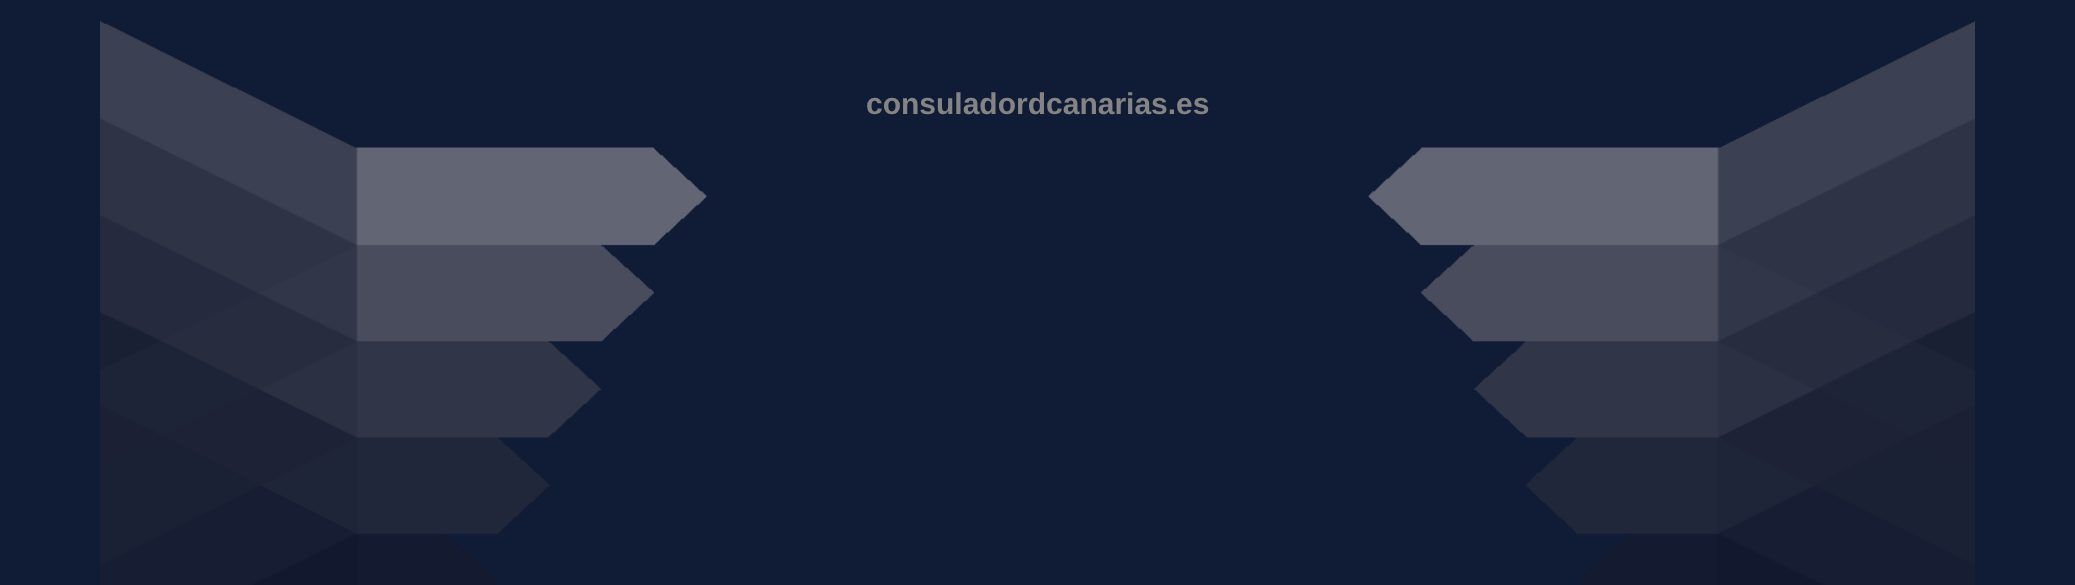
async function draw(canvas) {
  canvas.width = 2075
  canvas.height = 585
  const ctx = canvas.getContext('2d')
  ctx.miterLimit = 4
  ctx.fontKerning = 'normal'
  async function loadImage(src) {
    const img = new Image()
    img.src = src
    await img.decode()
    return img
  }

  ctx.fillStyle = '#101c36'
  ctx.fillRect(0, 0, 2075, 585)
  ctx.drawImage(await loadImage('image0.png'), 100, 21, 1875, 564)
  ctx.font = 'bold 30px Liberation Sans'
  ctx.fillStyle = '#848484'
  ctx.fillText('consuladordcanarias.es', 866, 114)
}

draw(document.querySelector('canvas'))
